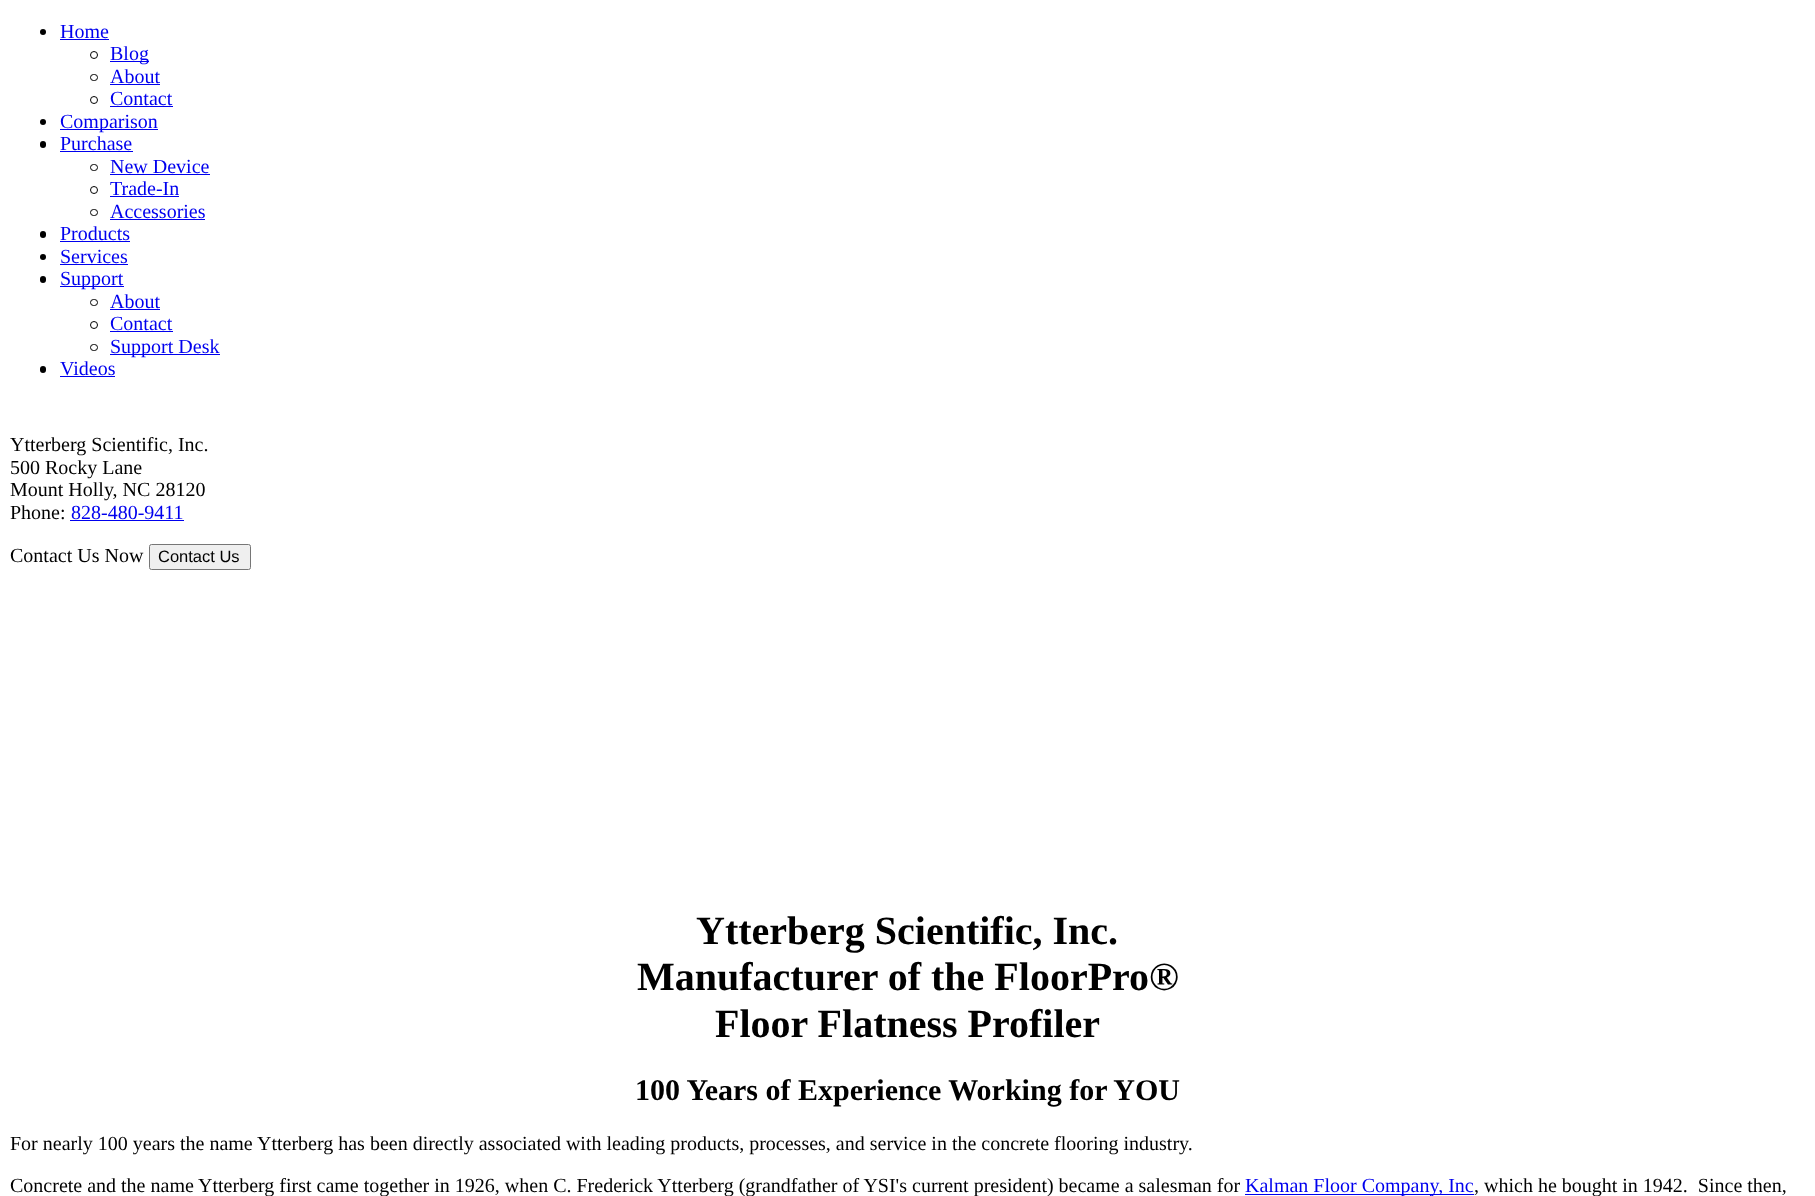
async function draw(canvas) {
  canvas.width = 1815
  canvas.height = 1196
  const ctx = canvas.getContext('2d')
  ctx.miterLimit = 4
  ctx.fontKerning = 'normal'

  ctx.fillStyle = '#fff'
  ctx.fillRect(0, 0, 1815, 1196)
  ctx.fillStyle = '#000'
  ctx.beginPath()
  ctx.arc(43, 32, 3, 0, 2 * Math.PI)
  ctx.fill()
  ctx.font = '20px Liberation Serif'
  ctx.fillStyle = '#00e'
  ctx.fillText('Home', 60, 38)
  ctx.fillRect(60, 39, 49, 1)
  ctx.beginPath()
  ctx.arc(94, 55, 3.5, 0, 2 * Math.PI)
  ctx.strokeStyle = '#000'
  ctx.stroke()
  ctx.fillRect(110, 61, 39, 1)
  ctx.fillText('Blog', 110, 60)
  ctx.beginPath()
  ctx.roundRect(90.5, 74.5, 7, 6, 3)
  ctx.stroke()
  ctx.fillText('About', 110, 83)
  ctx.fillRect(110, 84, 50, 1)
  ctx.beginPath()
  ctx.arc(94, 100, 3.5, 0, 2 * Math.PI)
  ctx.stroke()
  ctx.fillText('Contact', 110, 105)
  ctx.fillRect(110, 106, 63, 1)
  ctx.fillStyle = '#000'
  ctx.beginPath()
  ctx.arc(43, 122, 3, 0, 2 * Math.PI)
  ctx.fill()
  ctx.fillStyle = '#00e'
  ctx.fillRect(60, 129, 98, 1)
  ctx.fillText('Comparison', 60, 128)
  ctx.fillStyle = '#000'
  ctx.beginPath()
  ctx.roundRect(40, 141, 6, 7, 3)
  ctx.fill()
  ctx.fillStyle = '#00e'
  ctx.fillText('Purchase', 60, 150)
  ctx.fillRect(60, 151, 73, 1)
  ctx.beginPath()
  ctx.roundRect(90.5, 164.5, 7, 6, 3)
  ctx.stroke()
  ctx.fillText('New Device', 110, 173)
  ctx.fillRect(110, 174, 100, 1)
  ctx.beginPath()
  ctx.arc(94, 190, 3.5, 0, 2 * Math.PI)
  ctx.stroke()
  ctx.fillText('Trade-In', 110, 195)
  ctx.fillRect(110, 196, 69, 1)
  ctx.beginPath()
  ctx.roundRect(90.5, 209.5, 7, 6, 3)
  ctx.stroke()
  ctx.fillText('Accessories', 110, 218)
  ctx.fillRect(110, 219, 95, 1)
  ctx.fillStyle = '#000'
  ctx.beginPath()
  ctx.roundRect(40, 231, 6, 7, 3)
  ctx.fill()
  ctx.fillStyle = '#00e'
  ctx.fillText('Products', 60, 240)
  ctx.fillRect(60, 241, 70, 1)
  ctx.fillStyle = '#000'
  ctx.beginPath()
  ctx.arc(43, 257, 3, 0, 2 * Math.PI)
  ctx.fill()
  ctx.fillStyle = '#00e'
  ctx.fillText('Services', 60, 263)
  ctx.fillRect(60, 264, 68, 1)
  ctx.fillStyle = '#000'
  ctx.beginPath()
  ctx.roundRect(40, 276, 6, 7, 3)
  ctx.fill()
  ctx.fillStyle = '#00e'
  ctx.fillRect(60, 286, 64, 1)
  ctx.fillText('Support', 60, 285)
  ctx.beginPath()
  ctx.roundRect(90.5, 299.5, 7, 6, 3)
  ctx.stroke()
  ctx.fillText('About', 110, 308)
  ctx.fillRect(110, 309, 50, 1)
  ctx.beginPath()
  ctx.arc(94, 325, 3.5, 0, 2 * Math.PI)
  ctx.stroke()
  ctx.fillText('Contact', 110, 330)
  ctx.fillRect(110, 331, 63, 1)
  ctx.beginPath()
  ctx.roundRect(90.5, 344.5, 7, 6, 3)
  ctx.stroke()
  ctx.fillRect(110, 354, 110, 1)
  ctx.fillText('Support Desk', 110, 353)
  ctx.fillStyle = '#000'
  ctx.beginPath()
  ctx.roundRect(40, 366, 6, 7, 3)
  ctx.fill()
  ctx.fillStyle = '#00e'
  ctx.fillText('Videos', 60, 375)
  ctx.fillRect(60, 376, 55, 1)
  ctx.fillStyle = '#000'
  ctx.fillText('Ytterberg Scientific, Inc.', 10, 451)
  ctx.fillText('500 Rocky Lane', 10, 474)
  ctx.fillText('Mount Holly, NC 28120', 10, 496)
  ctx.fillText('Phone:', 10, 519)
  ctx.fillStyle = '#00e'
  ctx.fillText('828-480-9411', 71, 519)
  ctx.fillRect(70, 520, 114, 1)
  ctx.fillStyle = '#000'
  ctx.fillText('Contact Us Now', 10, 562)
  ctx.fillStyle = '#efefef'
  ctx.beginPath()
  ctx.roundRect(149.5, 544.5, 101, 25, 2)
  ctx.fill()
  ctx.strokeStyle = '#767676'
  ctx.stroke()
  ctx.font = '16.5px Liberation Sans'
  ctx.fillStyle = '#000'
  ctx.fillText('Contact Us', 158, 562)
  ctx.font = 'bold 40px Liberation Serif'
  ctx.fillText('Ytterberg Scientific, Inc.', 696, 944)
  ctx.fillText('Manufacturer of the FloorPro®', 637, 990)
  ctx.fillText('Floor Flatness Profiler', 715, 1037)
  ctx.font = 'bold 30px Liberation Serif'
  ctx.fillText('100 Years of Experience Working for YOU', 635, 1100)
  ctx.font = '20px Liberation Serif'
  ctx.fillText('For nearly 100 years the name Ytterberg has been directly associated with leading products, processes, and service in the concrete flooring industry.', 10, 1150)
  ctx.fillText('Concrete and the name Ytterberg first came together in 1926, when C. Frederick Ytterberg (grandfather of YSI\'s current president) became a salesman for', 10, 1192)
  ctx.fillStyle = '#00e'
  ctx.fillRect(1245, 1194, 229, 1)
  ctx.fillText('Kalman Floor Company, Inc', 1245, 1192)
  ctx.fillStyle = '#000'
  ctx.fillText(', which he bought in 1942.  Since then,', 1474, 1192)
}

draw(document.querySelector('canvas'))
